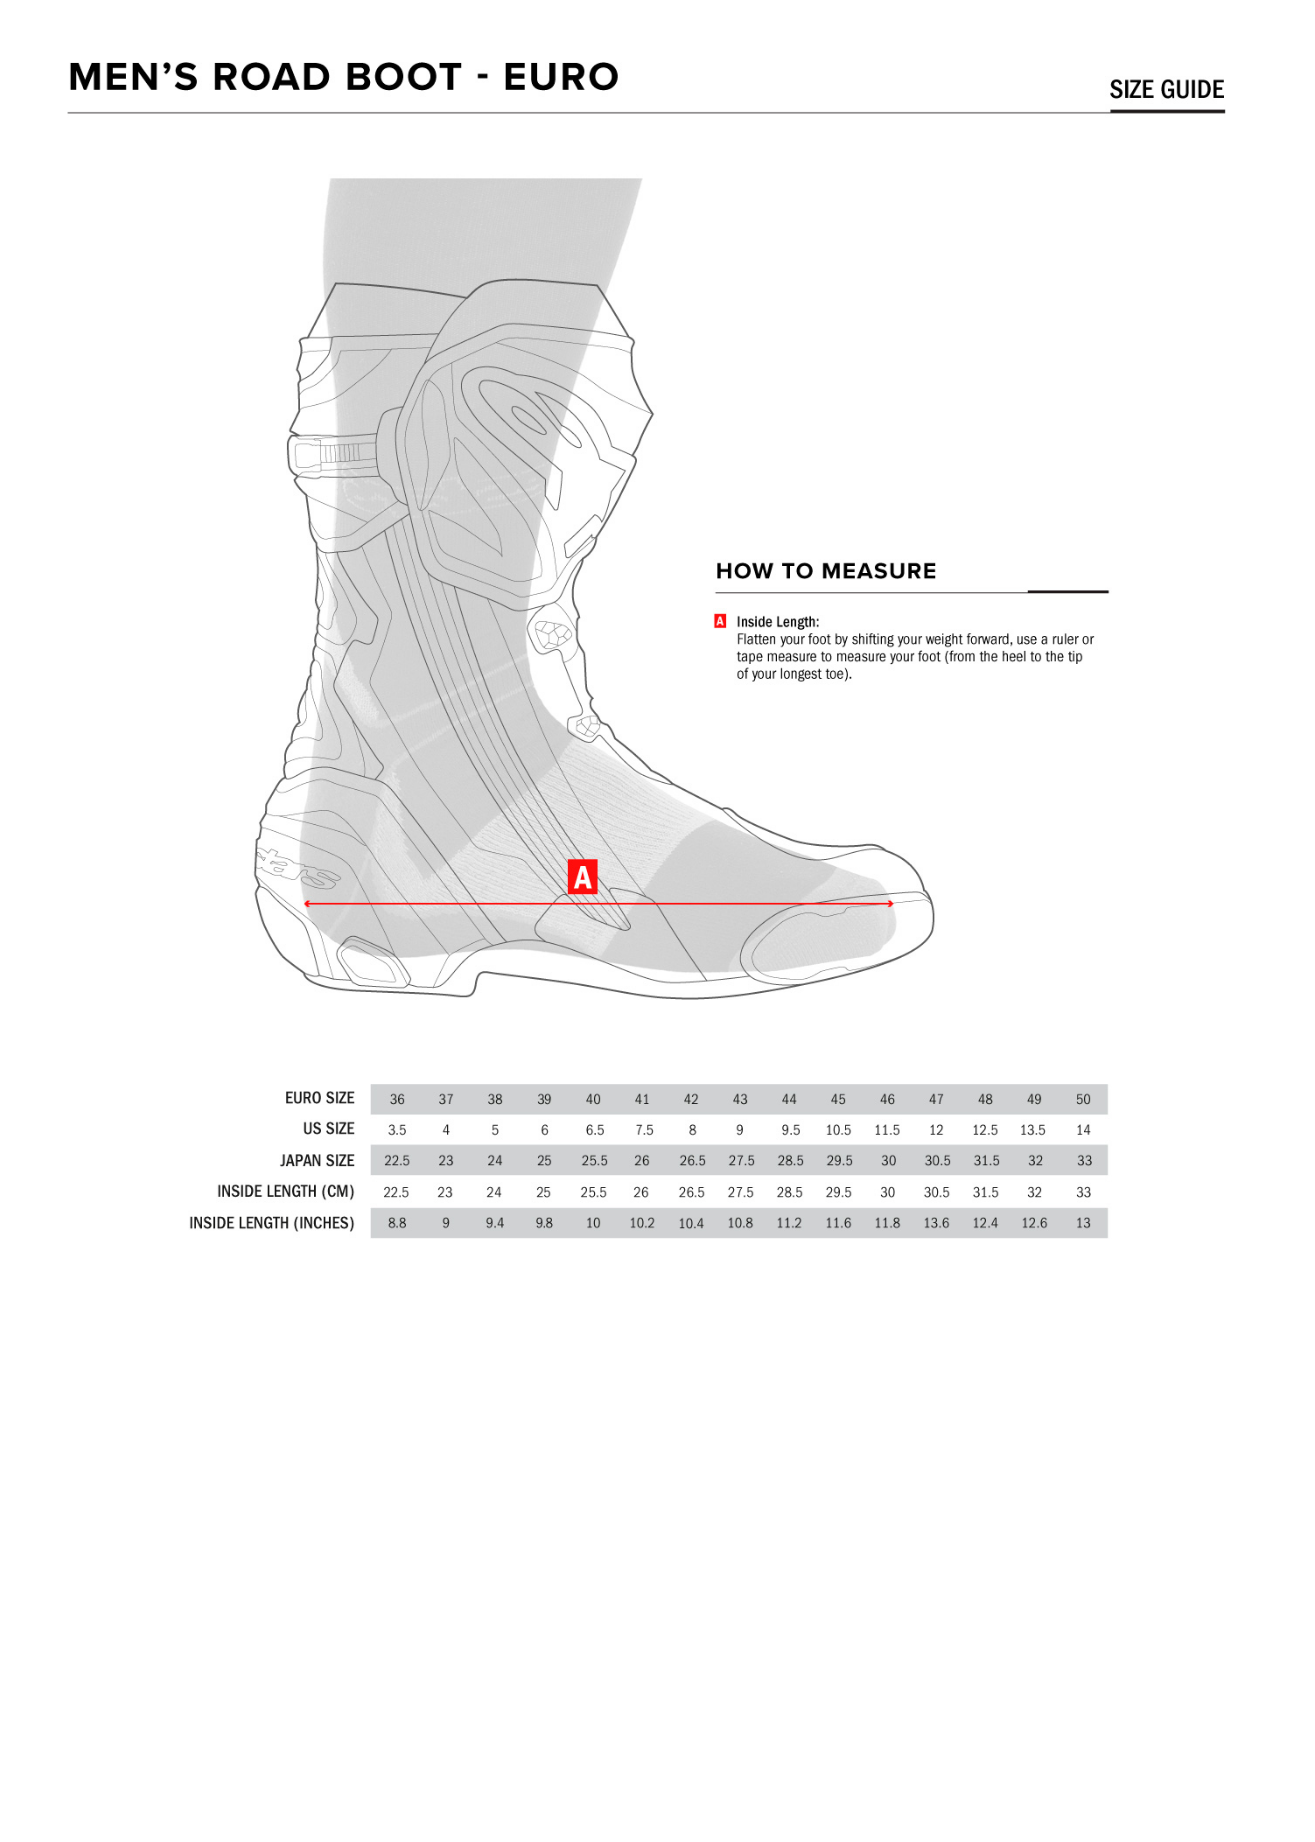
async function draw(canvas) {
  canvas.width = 1315
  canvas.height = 1842
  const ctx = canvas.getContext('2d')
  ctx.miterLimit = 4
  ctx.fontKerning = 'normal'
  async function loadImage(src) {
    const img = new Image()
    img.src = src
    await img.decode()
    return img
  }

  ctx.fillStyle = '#fff'
  ctx.fillRect(0, 0, 1315, 1842)
  ctx.drawImage(await loadImage('image0.png'), 67, 62, 1159, 1177)
}

draw(document.querySelector('canvas'))
